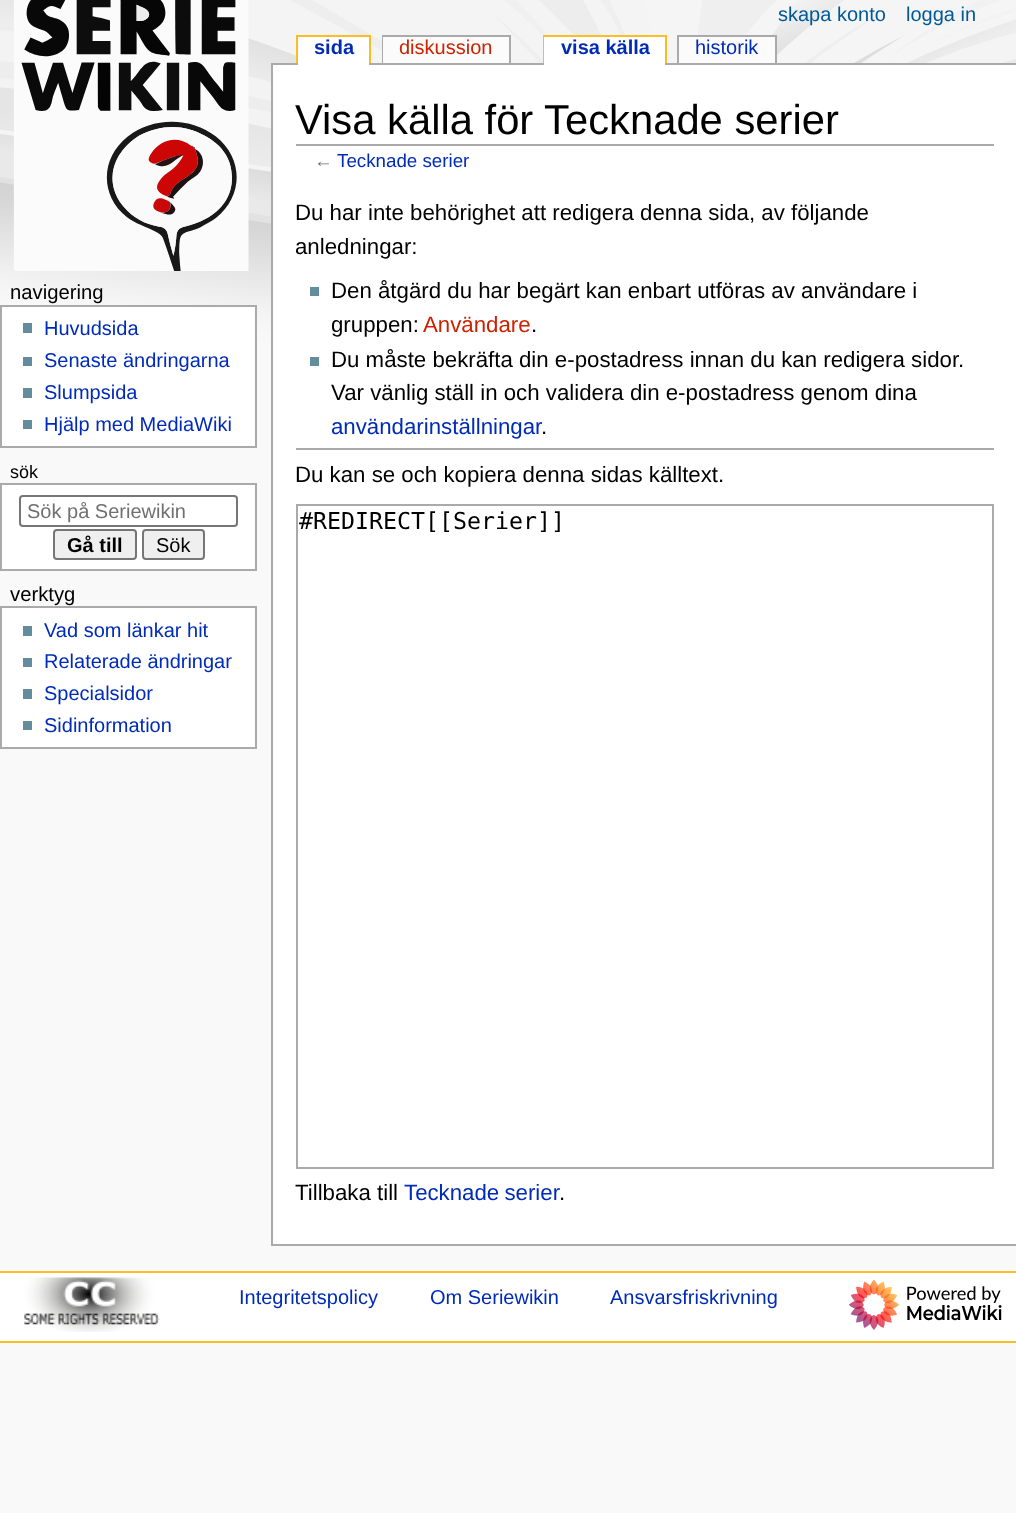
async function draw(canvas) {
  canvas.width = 1016
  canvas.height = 1513
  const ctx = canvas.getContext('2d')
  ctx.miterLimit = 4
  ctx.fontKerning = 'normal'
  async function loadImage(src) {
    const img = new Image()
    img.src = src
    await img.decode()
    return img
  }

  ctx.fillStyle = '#f9f9f9'
  ctx.fillRect(0, 0, 1016, 1513)
  ctx.drawImage(await loadImage('image0.png'), 0, 0, 1016, 367)
  ctx.drawImage(await loadImage('image1.png'), 13, 0, 236, 271)
  ctx.font = '20px Liberation Sans'
  ctx.fillStyle = '#005896'
  ctx.fillText('skapa konto', 778, 21)
  ctx.fillText('logga in', 906, 21)
  ctx.fillStyle = '#aaa'
  ctx.fillRect(271, 63, 745, 2)
  ctx.fillStyle = '#fff'
  ctx.fillRect(298, 37, 71, 28)
  ctx.font = 'bold 20px Liberation Sans'
  ctx.fillStyle = '#002bb8'
  ctx.fillText('sida', 314, 54)
  ctx.fillStyle = '#fabd23'
  ctx.fillRect(296, 35, 75, 2)
  ctx.fillRect(369, 35, 2, 28)
  ctx.fillRect(296, 35, 2, 28)
  ctx.fillStyle = '#aaa'
  ctx.fillRect(382, 35, 129, 2)
  ctx.fillRect(382, 35, 2, 28)
  ctx.fillStyle = '#fbfbfb'
  ctx.fillRect(383, 37, 126, 26)
  ctx.font = '20px Liberation Sans'
  ctx.fillStyle = '#c20'
  ctx.fillText('diskussion', 399, 54)
  ctx.fillStyle = '#aaa'
  ctx.fillRect(509, 35, 2, 28)
  ctx.fillStyle = '#fabd23'
  ctx.fillRect(543, 35, 124, 2)
  ctx.fillRect(543, 35, 2, 28)
  ctx.fillStyle = '#fff'
  ctx.fillRect(544, 37, 121, 28)
  ctx.font = 'bold 20px Liberation Sans'
  ctx.fillStyle = '#002bb8'
  ctx.fillText('visa källa', 561, 54)
  ctx.fillStyle = '#fabd23'
  ctx.fillRect(665, 35, 2, 28)
  ctx.fillStyle = '#fbfbfb'
  ctx.fillRect(679, 37, 96, 26)
  ctx.font = '20px Liberation Sans'
  ctx.fillStyle = '#002bb8'
  ctx.fillText('historik', 695, 54)
  ctx.fillStyle = '#aaa'
  ctx.fillRect(677, 35, 100, 2)
  ctx.fillRect(775, 35, 2, 28)
  ctx.fillRect(677, 35, 2, 28)
  ctx.font = '20.25px Liberation Sans'
  ctx.fillStyle = '#000'
  ctx.fillText('navigering', 10, 299)
  ctx.fillStyle = '#fff'
  ctx.beginPath()
  ctx.rect(1, 306, 255, 141)
  ctx.fill()
  ctx.strokeStyle = '#aaa'
  ctx.lineWidth = 2
  ctx.stroke()
  ctx.fillStyle = '#638c9c'
  ctx.fillRect(23, 323, 9, 10)
  ctx.font = '20px Liberation Sans'
  ctx.fillStyle = '#002bb8'
  ctx.fillText('Huvudsida', 44, 335)
  ctx.fillStyle = '#638c9c'
  ctx.fillRect(23, 357, 9, 9)
  ctx.fillStyle = '#002bb8'
  ctx.fillText('Senaste ändringarna', 44, 367)
  ctx.fillStyle = '#638c9c'
  ctx.fillRect(23, 388, 9, 10)
  ctx.fillStyle = '#002bb8'
  ctx.fillText('Slumpsida', 44, 399)
  ctx.fillStyle = '#638c9c'
  ctx.fillRect(23, 420, 9, 9)
  ctx.fillStyle = '#002bb8'
  ctx.fillText('Hjälp med MediaWiki', 44, 431)
  ctx.font = '18px Liberation Sans'
  ctx.fillStyle = '#000'
  ctx.fillText('sök', 10, 478)
  ctx.fillStyle = '#fff'
  ctx.beginPath()
  ctx.rect(1, 484, 255, 86)
  ctx.fill()
  ctx.stroke()
  ctx.beginPath()
  ctx.roundRect(20, 496, 217, 30, 3)
  ctx.strokeStyle = '#767676'
  ctx.stroke()
  ctx.font = '20px Liberation Sans'
  ctx.fillStyle = '#707070'
  ctx.fillText('Sök på Seriewikin', 27, 518)
  ctx.fillStyle = '#efefef'
  ctx.beginPath()
  ctx.roundRect(54, 530, 82, 29, 3)
  ctx.fill()
  ctx.stroke()
  ctx.font = 'bold 20px Liberation Sans'
  ctx.fillStyle = '#000'
  ctx.fillText('Gå till', 67, 552)
  ctx.fillStyle = '#efefef'
  ctx.beginPath()
  ctx.roundRect(143, 530, 61, 29, 3)
  ctx.fill()
  ctx.stroke()
  ctx.font = '20px Liberation Sans'
  ctx.fillStyle = '#000'
  ctx.fillText('Sök', 156, 552)
  ctx.font = '20.25px Liberation Sans'
  ctx.fillText('verktyg', 10, 601)
  ctx.fillStyle = '#fff'
  ctx.beginPath()
  ctx.rect(1, 607, 255, 141)
  ctx.fill()
  ctx.strokeStyle = '#aaa'
  ctx.stroke()
  ctx.fillStyle = '#638c9c'
  ctx.fillRect(23, 626, 9, 10)
  ctx.font = '20px Liberation Sans'
  ctx.fillStyle = '#002bb8'
  ctx.fillText('Vad som länkar hit', 44, 637)
  ctx.fillStyle = '#638c9c'
  ctx.fillRect(23, 658, 9, 9)
  ctx.fillStyle = '#002bb8'
  ctx.fillText('Relaterade ändringar', 44, 668)
  ctx.fillStyle = '#638c9c'
  ctx.fillRect(23, 689, 9, 10)
  ctx.fillStyle = '#002bb8'
  ctx.fillText('Specialsidor', 44, 700)
  ctx.fillStyle = '#638c9c'
  ctx.fillRect(23, 721, 9, 9)
  ctx.fillStyle = '#002bb8'
  ctx.fillText('Sidinformation', 44, 732)
  ctx.fillStyle = '#fff'
  ctx.fillRect(273, 65, 743, 1179)
  ctx.fillStyle = '#aaa'
  ctx.fillRect(271, 1244, 745, 2)
  ctx.fillRect(271, 63, 2, 1183)
  ctx.fillRect(296, 144, 698, 2)
  ctx.font = '41.75px Liberation Sans'
  ctx.fillStyle = '#000'
  ctx.fillText('Visa källa för Tecknade serier', 295, 134)
  ctx.font = '18.75px Liberation Sans'
  ctx.fillStyle = '#707070'
  ctx.fillText('←', 314, 167)
  ctx.fillStyle = '#002bb8'
  ctx.fillText('Tecknade serier', 337, 167)
  ctx.font = '22.25px Liberation Sans'
  ctx.fillStyle = '#000'
  ctx.fillText('Du har inte behörighet att redigera denna sida, av följande', 295, 220)
  ctx.fillText('anledningar:', 295, 254)
  ctx.fillStyle = '#638c9c'
  ctx.fillRect(310, 287, 9, 9)
  ctx.fillStyle = '#000'
  ctx.fillText('Den åtgärd du har begärt kan enbart utföras av användare i', 331, 298)
  ctx.fillText('gruppen:', 331, 332)
  ctx.fillStyle = '#c20'
  ctx.fillText('Användare', 423, 332)
  ctx.fillStyle = '#000'
  ctx.fillText('.', 531, 332)
  ctx.fillStyle = '#638c9c'
  ctx.fillRect(310, 357, 9, 9)
  ctx.fillStyle = '#000'
  ctx.fillText('Du måste bekräfta din e-postadress innan du kan redigera sidor.', 331, 367)
  ctx.fillText('Var vänlig ställ in och validera din e-postadress genom dina', 331, 400)
  ctx.fillStyle = '#002bb8'
  ctx.fillText('användarinställningar', 331, 434)
  ctx.fillStyle = '#000'
  ctx.fillText('.', 541, 434)
  ctx.fillStyle = '#aaa'
  ctx.fillRect(296, 448, 698, 2)
  ctx.fillStyle = '#000'
  ctx.fillText('Du kan se och kopiera denna sidas källtext.', 295, 482)
  ctx.strokeRect(297, 505, 696, 663)
  ctx.font = '23.25px DejaVu Sans Mono'
  ctx.fillText('#REDIRECT[[Serier]]', 299, 529)
  ctx.font = '22.25px Liberation Sans'
  ctx.fillText('Tillbaka till', 295, 1200)
  ctx.wordSpacing = '-1px'
  ctx.fillStyle = '#002bb8'
  ctx.fillText('Tecknade serier', 404, 1200)
  ctx.wordSpacing = '0px'
  ctx.fillStyle = '#000'
  ctx.fillText('.', 559, 1200)
  ctx.fillStyle = '#fff'
  ctx.fillRect(0, 1273, 1016, 68)
  ctx.fillStyle = '#fabd23'
  ctx.fillRect(0, 1271, 1016, 2)
  ctx.fillRect(0, 1341, 1016, 2)
  ctx.drawImage(await loadImage('image2.png'), 24, 1277, 136, 55)
  ctx.font = '20px Liberation Sans'
  ctx.fillStyle = '#002bb8'
  ctx.fillText('Integritetspolicy', 239, 1304)
  ctx.fillText('Om Seriewikin', 430, 1304)
  ctx.fillText('Ansvarsfriskrivning', 610, 1304)
  ctx.drawImage(await loadImage('image3.png'), 849, 1279, 153, 51)
}

draw(document.querySelector('canvas'))
